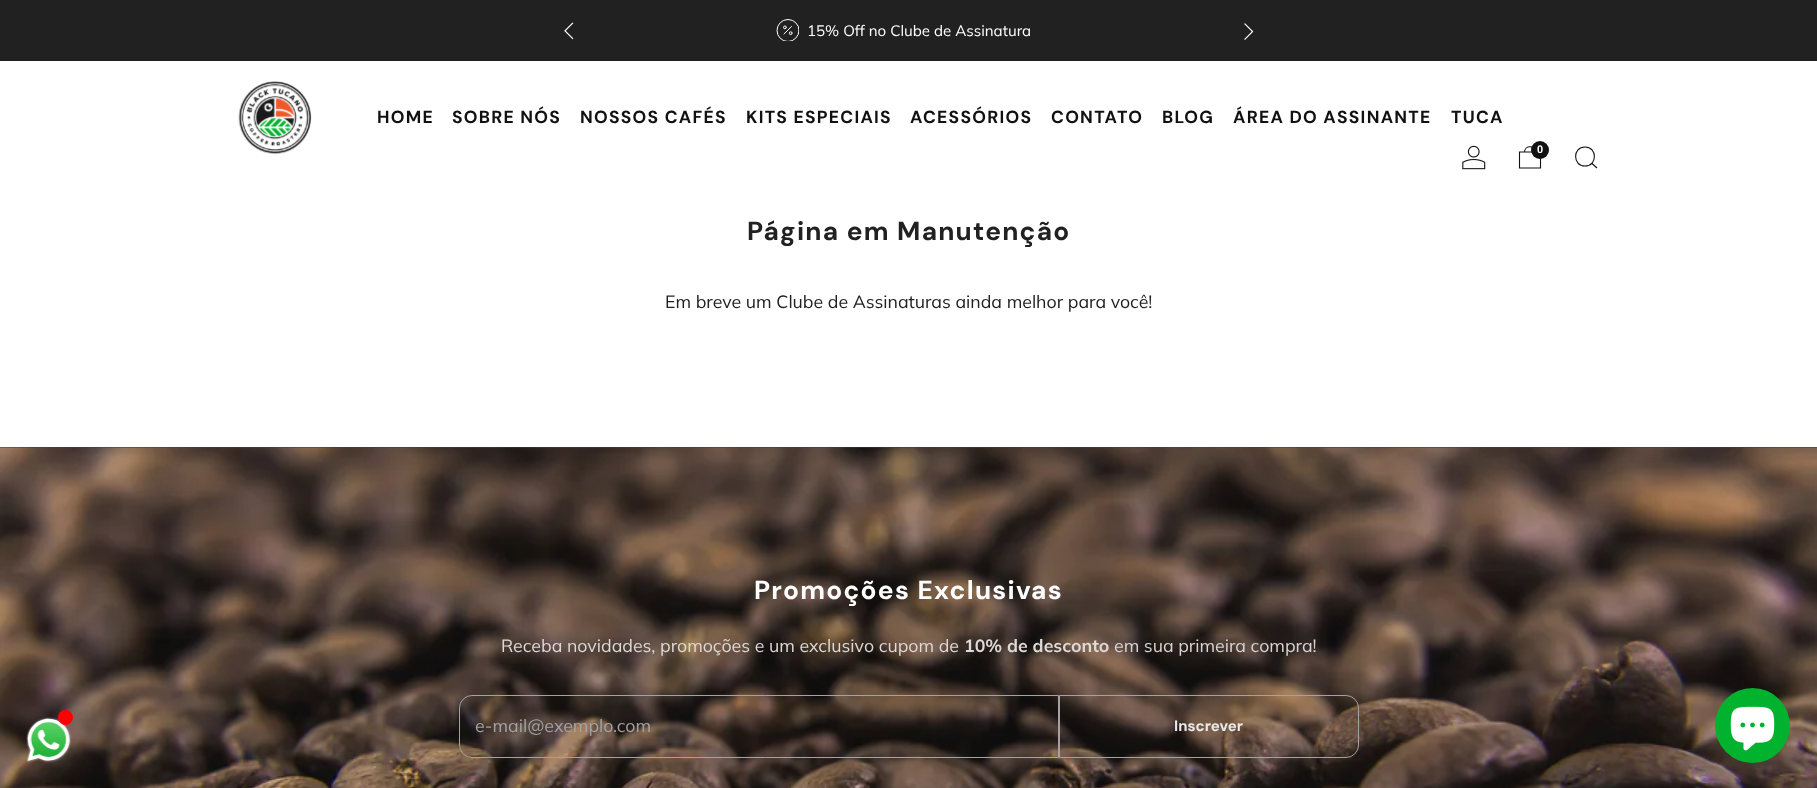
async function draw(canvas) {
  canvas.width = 1817
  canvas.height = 788
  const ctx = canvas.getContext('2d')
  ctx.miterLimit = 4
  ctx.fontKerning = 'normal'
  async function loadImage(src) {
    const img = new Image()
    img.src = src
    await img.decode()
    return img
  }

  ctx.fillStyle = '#fff'
  ctx.fillRect(0, 0, 1817, 788)
  ctx.fillStyle = '#4d3c34'
  ctx.fillRect(0, 447, 1817, 1)
  ctx.drawImage(await loadImage('image5.png'), 0, 447, 1817, 341)
  ctx.drawImage(await loadImage('image0.png'), 26, 717, 46, 46)
  ctx.fillStyle = '#f00'
  ctx.beginPath()
  ctx.arc(65.5, 717.5, 7.5, 0, 2 * Math.PI)
  ctx.fill()
  ctx.fillStyle = '#212121'
  ctx.fillRect(0, 0, 1817, 61)
  ctx.drawImage(await loadImage('image1.png'), 564, 22, 10, 18)
  ctx.beginPath()
  ctx.moveTo(784, 34)
  ctx.lineTo(791.5, 26.5)
  ctx.strokeStyle = '#fff'
  ctx.lineCap = 'round'
  ctx.lineJoin = 'round'
  ctx.stroke()
  ctx.beginPath()
  ctx.arc(784.9, 27.4, 1.4, 0, 2 * Math.PI)
  ctx.stroke()
  ctx.beginPath()
  ctx.arc(790.7, 33.2, 1.4, 0, 2 * Math.PI)
  ctx.stroke()
  ctx.save()
  ctx.beginPath()
  ctx.rect(776, 19, 23, 22)
  ctx.clip()
  ctx.beginPath()
  ctx.arc(788, 30.5, 11, 0, 2 * Math.PI)
  ctx.stroke()
  ctx.restore()
  ctx.font = '15.1px Muli'
  ctx.fillStyle = '#fff'
  ctx.fillText('15% Off no Clube de Assinatura', 807, 36)
  ctx.drawImage(await loadImage('image2.png'), 1244, 23, 10, 17)
  ctx.drawImage(await loadImage('image3.png'), 238, 81, 74, 74)
  ctx.letterSpacing = '1.25px'
  ctx.font = 'bold 17.5px "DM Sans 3"'
  ctx.fillStyle = '#111'
  ctx.fillText('HOME', 377, 123)
  ctx.fillText('SOBRE NÓS', 452, 123)
  ctx.fillText('NOSSOS CAFÉS', 580, 123)
  ctx.fillText('KITS ESPECIAIS', 746, 123)
  ctx.fillText('ACESSÓRIOS', 910, 123)
  ctx.fillText('CONTATO', 1051, 123)
  ctx.fillText('BLOG', 1162, 123)
  ctx.fillText('ÁREA DO ASSINANTE', 1233, 123)
  ctx.fillText('TUCA', 1451, 123)
  ctx.drawImage(await loadImage('image4.png'), 1462, 145, 24, 25)
  ctx.beginPath()
  ctx.moveTo(1519.5, 152)
  ctx.lineTo(1540.5, 152)
  ctx.lineTo(1540.5, 168)
  ctx.lineTo(1519.5, 168)
  ctx.closePath()
  ctx.moveTo(1535.5, 152)
  ctx.bezierCurveTo(1535.5, 145, 1524.5, 145, 1524.5, 152)
  ctx.strokeStyle = '#111'
  ctx.lineWidth = 1.1
  ctx.lineCap = 'butt'
  ctx.lineJoin = 'miter'
  ctx.stroke()
  ctx.beginPath()
  ctx.arc(1540, 150, 9, 0, 2 * Math.PI)
  ctx.fill()
  ctx.letterSpacing = '0px'
  ctx.font = 'bold 11px Liberation Sans'
  ctx.fillStyle = '#fff'
  ctx.fillText('0', 1537, 153)
  ctx.beginPath()
  ctx.moveTo(1585, 166)
  ctx.bezierCurveTo(1597.5, 166, 1597.5, 147, 1585, 147)
  ctx.bezierCurveTo(1572.5, 147, 1572.5, 166, 1585, 166)
  ctx.closePath()
  ctx.moveTo(1592, 163.5)
  ctx.lineTo(1597, 168)
  ctx.stroke()
  ctx.letterSpacing = '1.25px'
  ctx.font = 'bold 26.25px DM Sans'
  ctx.fillStyle = '#212121'
  ctx.fillText('Página em Manutenção', 747, 240)
  ctx.letterSpacing = '0px'
  ctx.font = '17.75px Muli'
  ctx.fillText('Em breve um Clube de Assinaturas ainda melhor para você!', 665, 308)
  ctx.letterSpacing = '1.25px'
  ctx.font = 'bold 26.25px DM Sans'
  ctx.fillStyle = '#fff'
  ctx.fillText('Promoções Exclusivas', 754, 599)
  ctx.letterSpacing = '0px'
  ctx.font = '17.75px Muli'
  ctx.fillStyle = '#dddad7'
  ctx.fillText('Receba novidades, promoções e um exclusivo cupom de', 501, 652)
  ctx.font = 'bold 17.75px Muli'
  ctx.fillText('10% de desconto', 964, 652)
  ctx.font = '17.75px Muli'
  ctx.fillStyle = '#d7d5d4'
  ctx.fillText('em sua primeira compra!', 1114, 652)
  ctx.beginPath()
  ctx.roundRect(459.5, 695.5, 599, 62, [12.5, 0, 0, 12.5])
  ctx.strokeStyle = '#a3a3a3'
  ctx.lineWidth = 1
  ctx.stroke()
  ctx.fillStyle = '#a3a3a3'
  ctx.fillText('e-mail@exemplo.com', 475, 732)
  ctx.beginPath()
  ctx.roundRect(1059.5, 695.5, 299, 62, [0, 12.5, 12.5, 0])
  ctx.stroke()
  ctx.font = 'bold 15px "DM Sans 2"'
  ctx.fillStyle = '#eaeaea'
  ctx.fillText('Inscrever', 1174, 731)
  ctx.fillStyle = '#00b22d'
  ctx.beginPath()
  ctx.arc(1752.5, 725.5, 37.5, 0, 2 * Math.PI)
  ctx.fill()
  ctx.drawImage(await loadImage('image6.png'), 1730, 706, 45, 45)
}

draw(document.querySelector('canvas'))
